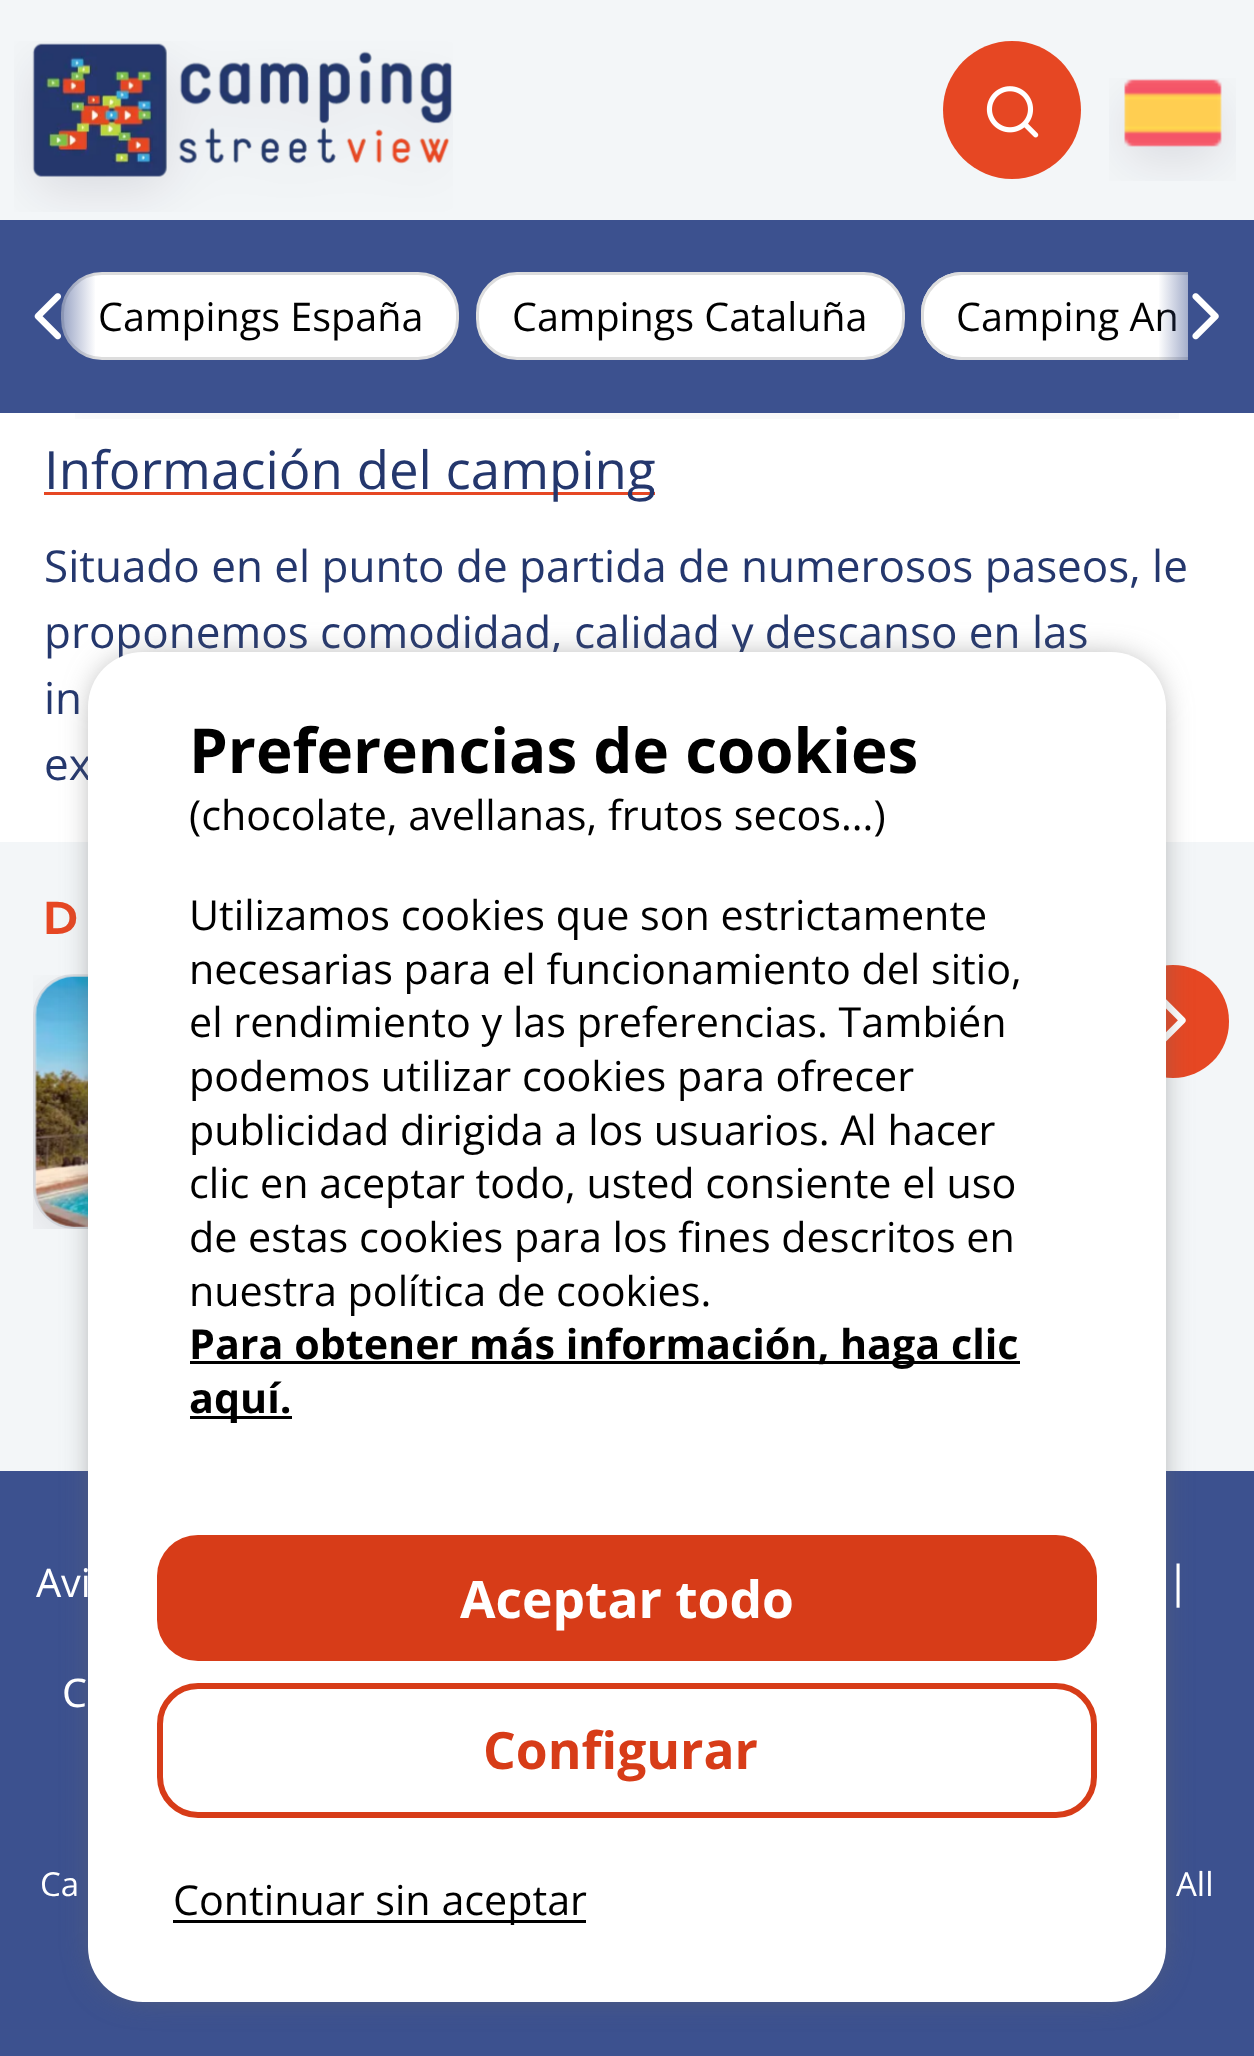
async function draw(canvas) {
  canvas.width = 1254
  canvas.height = 2056
  const ctx = canvas.getContext('2d')
  ctx.miterLimit = 4
  ctx.fontKerning = 'normal'
  async function loadImage(src) {
    const img = new Image()
    img.src = src
    await img.decode()
    return img
  }
  let gradient

  ctx.fillStyle = '#f3f6f8'
  ctx.fillRect(0, 0, 1254, 2056)
  ctx.drawImage(await loadImage('image0.png'), 14, 41, 439, 171)
  ctx.fillStyle = '#e64723'
  ctx.beginPath()
  ctx.arc(1012, 110, 69, 0, 2 * Math.PI)
  ctx.fill()
  ctx.drawImage(await loadImage('image1.png'), 986, 86, 53, 52)
  ctx.drawImage(await loadImage('image2.png'), 1109, 78, 127, 103)
  ctx.fillStyle = '#3c518f'
  ctx.fillRect(0, 220, 1254, 193)
  ctx.fillStyle = '#fff'
  ctx.beginPath()
  ctx.roundRect(62.5, 273.5, 395, 85, 39.5)
  ctx.fill()
  ctx.strokeStyle = '#ddd'
  ctx.lineWidth = 3
  ctx.stroke()
  gradient = ctx.createLinearGradient(0, 316, 96, 316)
  gradient.addColorStop(0, '#3c518f00')
  gradient.addColorStop(0.33, '#3c518f')
  gradient.addColorStop(0.66, '#3c518f80')
  gradient.addColorStop(1, '#3c518f00')
  ctx.fillStyle = gradient
  ctx.fillRect(61, 273, 34, 86)
  ctx.drawImage(await loadImage('image3.png'), 34, 293, 28, 47)
  ctx.font = '39.5px Open Sans'
  ctx.fillStyle = '#000'
  ctx.fillText('Campings España', 98, 331)
  ctx.fillStyle = '#fff'
  ctx.beginPath()
  ctx.roundRect(477.5, 273.5, 426, 85, 39.5)
  ctx.fill()
  ctx.stroke()
  ctx.fillStyle = '#000'
  ctx.fillText('Campings Cataluña', 512, 331)
  ctx.fillStyle = '#fff'
  ctx.beginPath()
  ctx.roundRect(921, 272, 267, 88, [41, 0, 0, 41])
  ctx.fill()
  ctx.save()
  ctx.beginPath()
  ctx.rect(50, 272, 1138, 88)
  ctx.clip()
  ctx.beginPath()
  ctx.roundRect(922.5, 273.5, 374, 85, 39.5)
  ctx.stroke()
  ctx.restore()
  ctx.fillStyle = '#000'
  ctx.fillText('Camping An', 956, 331)
  gradient = ctx.createLinearGradient(1254, 316, 1158, 316)
  gradient.addColorStop(0, '#3c518f00')
  gradient.addColorStop(0.33, '#3c518f')
  gradient.addColorStop(0.66, '#3c518f80')
  gradient.addColorStop(1, '#3c518f00')
  ctx.fillStyle = gradient
  ctx.fillRect(1159, 272, 29, 88)
  ctx.drawImage(await loadImage('image4.png'), 1192, 293, 27, 47)
  ctx.fillStyle = '#fff'
  ctx.fillRect(0, 413, 1254, 429)
  ctx.drawImage(await loadImage('image5.png'), 75, 413, 1104, 6)
  ctx.fillStyle = '#e64723'
  ctx.fillRect(44, 492, 611, 3)
  ctx.font = '52.75px Open Sans'
  ctx.fillStyle = '#24376d'
  ctx.fillText('Información del camping', 44, 489)
  ctx.font = '44px Open Sans'
  ctx.fillText('Situado en el punto de partida de numerosos paseos, le', 44, 582)
  ctx.fillText('proponemos comodidad, calidad y descanso en las', 44, 648)
  ctx.fillText('in', 44, 714)
  ctx.fillText('ex', 44, 780)
  ctx.font = 'bold 44px Kumbh Sans'
  ctx.fillStyle = '#e64723'
  ctx.fillText('D', 44, 934)
  ctx.beginPath()
  ctx.roundRect(34.5, 975.5, 374, 252, 39.5)
  ctx.strokeStyle = '#dee2e6'
  ctx.stroke()
  ctx.drawImage(await loadImage('image6.png'), 33, 975, 55, 254)
  ctx.beginPath()
  ctx.roundRect(1117, 965, 112, 113, 56)
  ctx.fill()
  ctx.drawImage(await loadImage('image7.png'), 1166, 999, 20, 43)
  ctx.fillStyle = '#3c518f'
  ctx.fillRect(0, 1471, 1254, 585)
  ctx.fillStyle = '#696969'
  ctx.filter = 'blur(18px)'
  ctx.beginPath()
  ctx.roundRect(102, 666, 1050, 1322, 41)
  ctx.fill()
  ctx.filter = 'none'
  ctx.fillStyle = '#fff'
  ctx.beginPath()
  ctx.roundRect(88, 652, 1078, 1350, 55)
  ctx.fill()
  ctx.font = 'bold 61.9px Open Sans'
  ctx.fillStyle = '#000'
  ctx.fillText('Preferencias de cookies', 189, 773)
  ctx.font = '41.25px Open Sans'
  ctx.fillText('(chocolate, avellanas, frutos secos...)', 189, 830)
  ctx.fillText('Utilizamos cookies que son estrictamente', 189, 930)
  ctx.fillText('necesarias para el funcionamiento del sitio,', 189, 984)
  ctx.fillText('el rendimiento y las preferencias. También', 189, 1037)
  ctx.fillText('podemos utilizar cookies para ofrecer', 189, 1091)
  ctx.fillText('publicidad dirigida a los usuarios. Al hacer', 189, 1145)
  ctx.fillText('clic en aceptar todo, usted consiente el uso', 189, 1198)
  ctx.fillText('de estas cookies para los fines descritos en', 189, 1252)
  ctx.fillText('nuestra política de cookies.', 189, 1306)
  ctx.fillRect(190, 1361, 830, 3)
  ctx.font = 'bold 41.25px Open Sans'
  ctx.fillText('Para obtener más información, haga clic', 189, 1359)
  ctx.fillRect(190, 1416, 102, 3)
  ctx.fillText('aquí.', 189, 1413)
  ctx.fillStyle = '#d73c18'
  ctx.beginPath()
  ctx.roundRect(157, 1535, 940, 126, 41)
  ctx.fill()
  ctx.font = 'bold 51.5px Open Sans'
  ctx.fillStyle = '#fff'
  ctx.fillText('Aceptar todo', 460, 1618)
  ctx.beginPath()
  ctx.roundRect(160, 1686, 934, 129, 38)
  ctx.strokeStyle = '#d73c18'
  ctx.lineWidth = 6
  ctx.stroke()
  ctx.fillStyle = '#d73c18'
  ctx.fillText('Configurar', 483, 1769)
  ctx.fillStyle = '#000'
  ctx.fillRect(173, 1920, 413, 3)
  ctx.font = '41.25px Open Sans'
  ctx.fillText('Continuar sin aceptar', 173, 1915)
  ctx.font = '39.5px Noto Sans'
  ctx.fillStyle = '#fff'
  ctx.fillText('A', 36, 1597)
  ctx.font = '39.5px Open Sans'
  ctx.fillText('vi', 61, 1597)
  ctx.font = '44px Open Sans'
  ctx.fillText('|', 1166, 1597)
  ctx.font = '39.5px Noto Sans'
  ctx.fillText('C', 62, 1707)
  ctx.font = '33px Open Sans'
  ctx.fillText('Ca', 40, 1896)
  ctx.fillText('All', 1176, 1896)
}

draw(document.querySelector('canvas'))
